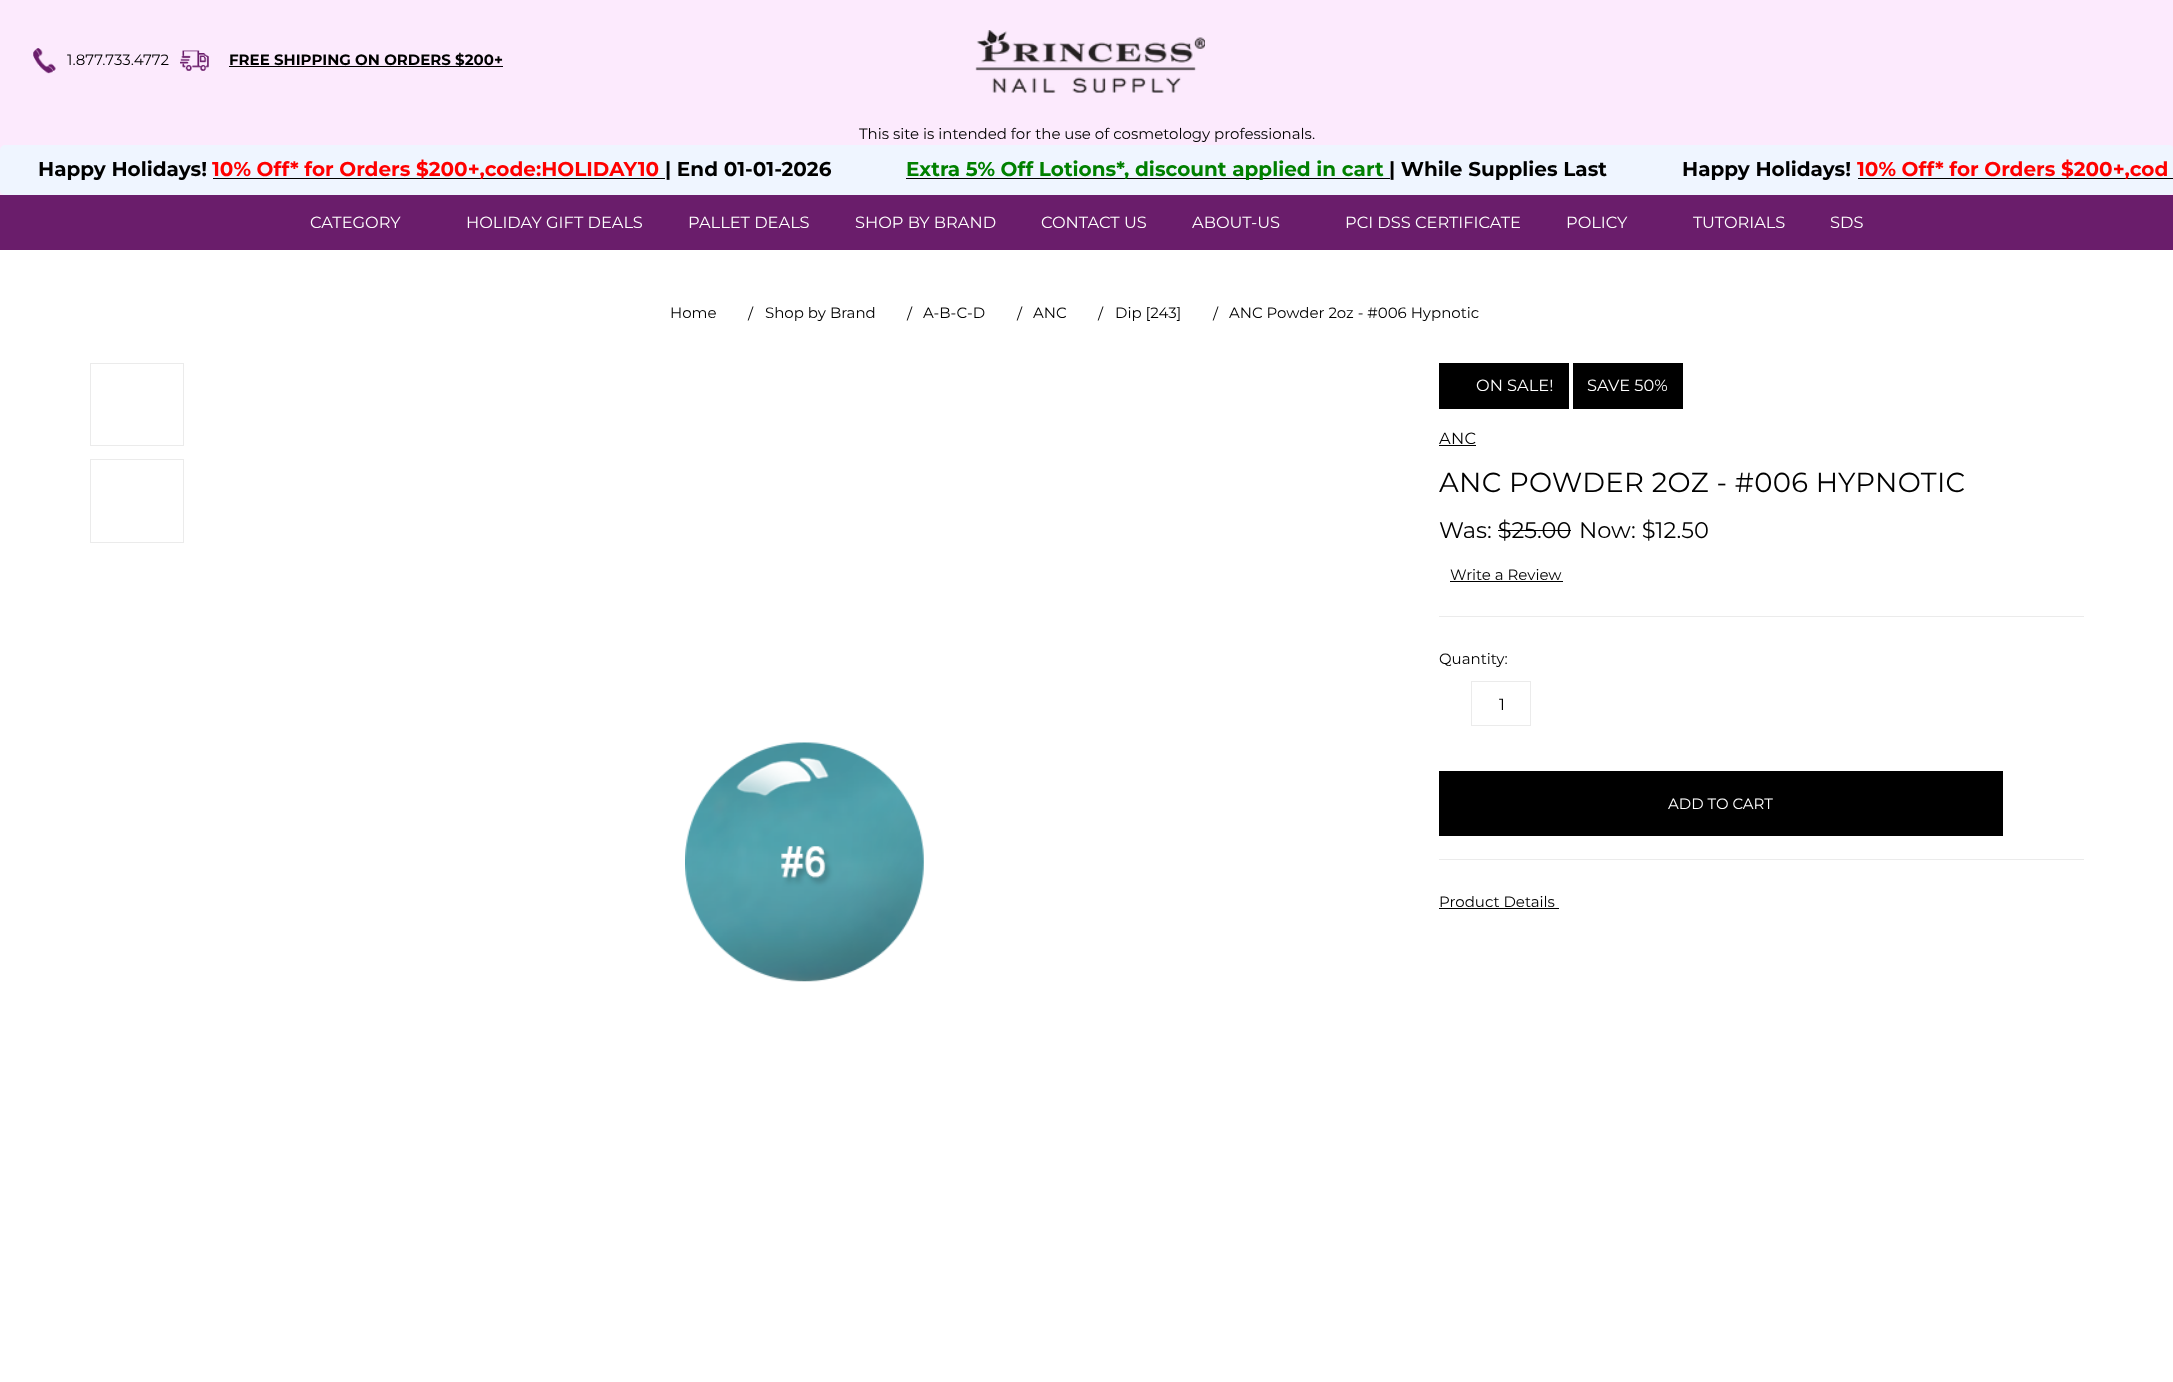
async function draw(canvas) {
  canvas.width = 2173
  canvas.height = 1382
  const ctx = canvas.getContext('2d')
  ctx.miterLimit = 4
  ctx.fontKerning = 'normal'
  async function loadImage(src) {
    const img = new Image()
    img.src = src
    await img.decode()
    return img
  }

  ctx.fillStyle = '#fff'
  ctx.fillRect(0, 0, 2173, 1382)
  ctx.fillStyle = '#fceafd'
  ctx.fillRect(0, 0, 2173, 195)
  ctx.drawImage(await loadImage('image0.png'), 33, 48, 23, 26)
  ctx.font = '15px Montserrat'
  ctx.fillStyle = '#000'
  ctx.fillText('1.877.733.4772', 67, 65)
  ctx.drawImage(await loadImage('image1.png'), 180, 50, 29, 21)
  ctx.fillRect(229, 66, 274, 1)
  ctx.font = 'bold 15px Montserrat'
  ctx.fillText('FREE SHIPPING ON ORDERS $200+', 229, 65)
  ctx.drawImage(await loadImage('image2.png'), 975, 30, 230, 63)
  ctx.font = '15px Montserrat'
  ctx.fillText('This site is intended for the use of cosmetology professionals.', 859, 139)
  ctx.fillStyle = '#eff5ff'
  ctx.beginPath()
  ctx.roundRect(0, 145, 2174, 50, 5)
  ctx.fill()
  ctx.font = 'bold 20px Montserrat'
  ctx.fillStyle = '#000'
  ctx.fillText('Happy Holidays!', 38, 176)
  ctx.fillRect(213, 178, 452, 1)
  ctx.fillStyle = '#f00'
  ctx.fillText('10% Off* for Orders $200+,code:HOLIDAY10', 212, 176)
  ctx.fillStyle = '#000'
  ctx.fillText('| End 01-01-2026', 665, 176)
  ctx.fillRect(906, 178, 484, 1)
  ctx.fillStyle = '#008000'
  ctx.fillText('Extra 5% Off Lotions*, discount applied in cart', 906, 176)
  ctx.fillStyle = '#000'
  ctx.fillText('| While Supplies Last', 1389, 176)
  ctx.fillText('Happy Holidays!', 1682, 176)
  ctx.fillRect(1858, 178, 315, 1)
  ctx.fillStyle = '#f00'
  ctx.fillText('10% Off* for Orders $200+,cod', 1857, 176)
  ctx.fillStyle = '#6a1d6b'
  ctx.fillRect(0, 195, 2173, 55)
  ctx.font = '16.25px Montserrat'
  ctx.fillStyle = '#fff'
  ctx.fillText('CATEGORY', 310, 228)
  ctx.fillText('HOLIDAY GIFT DEALS', 466, 228)
  ctx.fillText('PALLET DEALS', 688, 228)
  ctx.fillText('SHOP BY BRAND', 855, 228)
  ctx.fillText('CONTACT US', 1041, 228)
  ctx.fillText('ABOUT-US', 1192, 228)
  ctx.fillText('PCI DSS CERTIFICATE', 1345, 228)
  ctx.fillText('POLICY', 1566, 228)
  ctx.fillText('TUTORIALS', 1693, 228)
  ctx.fillText('SDS', 1830, 228)
  ctx.font = '15px Montserrat'
  ctx.fillStyle = '#000'
  ctx.fillText('Home', 670, 318)
  ctx.fillText('/', 748, 319)
  ctx.fillText('Shop by Brand', 765, 318)
  ctx.fillText('/', 907, 319)
  ctx.fillText('A-B-C-D', 923, 318)
  ctx.fillText('/', 1017, 319)
  ctx.fillText('ANC', 1033, 318)
  ctx.fillText('/', 1098, 319)
  ctx.fillText('Dip [243]', 1115, 318)
  ctx.fillText('/', 1213, 319)
  ctx.fillText('ANC Powder 2oz - #006 Hypnotic', 1229, 318)
  ctx.strokeStyle = '#ebebeb'
  ctx.strokeRect(90.5, 363.5, 93, 82)
  ctx.strokeRect(90.5, 459.5, 93, 83)
  ctx.drawImage(await loadImage('image3.png'), 685, 742, 239, 240)
  ctx.fillStyle = '#ebebeb'
  ctx.fillRect(1439, 616, 645, 1)
  ctx.fillStyle = '#000'
  ctx.fillRect(1439, 363, 130, 46)
  ctx.font = '16.25px Montserrat'
  ctx.fillStyle = '#fff'
  ctx.fillText('ON SALE!', 1476, 391)
  ctx.fillStyle = '#000'
  ctx.fillRect(1573, 363, 110, 46)
  ctx.fillStyle = '#fff'
  ctx.fillText('SAVE 50%', 1587, 391)
  ctx.letterSpacing = '0.3px'
  ctx.fillStyle = '#000'
  ctx.fillText('ANC', 1439, 444)
  ctx.fillRect(1439, 445, 37, 1)
  ctx.font = '27.5px Montserrat'
  ctx.fillText('ANC POWDER 2OZ - #006 HYPNOTIC', 1439, 492)
  ctx.letterSpacing = '0px'
  ctx.font = '22.5px Montserrat'
  ctx.fillText('Was: $25.00', 1439, 538)
  ctx.fillRect(1498, 530, 73, 1)
  ctx.fillText('Now: $12.50', 1579, 538)
  ctx.font = '15px Montserrat'
  ctx.fillText('Write a Review', 1450, 580)
  ctx.fillRect(1450, 581, 113, 1)
  ctx.fillStyle = '#ebebeb'
  ctx.fillRect(1439, 859, 645, 1)
  ctx.fillStyle = '#000'
  ctx.fillText('Quantity:', 1439, 664)
  ctx.strokeRect(1471.5, 681.5, 59, 44)
  ctx.font = '16.25px Montserrat'
  ctx.fillText('1', 1499, 710)
  ctx.fillRect(1439, 771, 564, 65)
  ctx.font = '15px Montserrat'
  ctx.fillStyle = '#fff'
  ctx.fillText('ADD TO CART', 1668, 809)
  ctx.fillStyle = '#000'
  ctx.fillText('Product Details', 1439, 907)
  ctx.fillRect(1439, 908, 120, 1)
}

draw(document.querySelector('canvas'))
